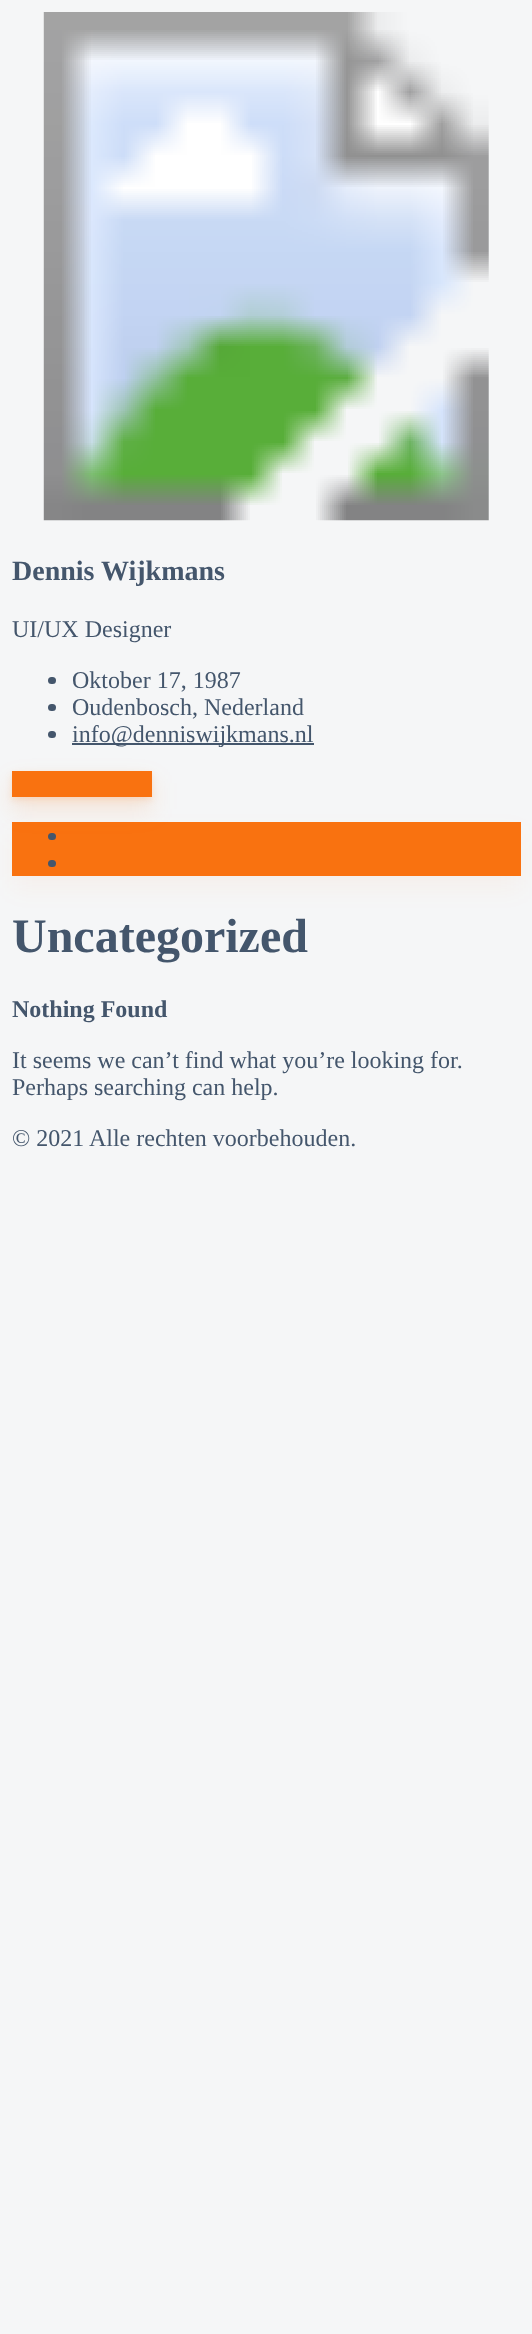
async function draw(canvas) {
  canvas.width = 532
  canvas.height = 2334
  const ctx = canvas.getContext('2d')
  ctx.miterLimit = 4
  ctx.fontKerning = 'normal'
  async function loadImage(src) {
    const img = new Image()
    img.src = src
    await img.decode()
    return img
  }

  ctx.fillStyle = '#f5f6f7'
  ctx.fillRect(0, 0, 532, 2334)
  ctx.drawImage(await loadImage('image0.png'), 43, 12, 446, 509)
  ctx.font = 'bold 28px Liberation Serif'
  ctx.fillStyle = '#44566c'
  ctx.fillText('Dennis', 12, 580)
  ctx.fillText('Wijkmans', 101, 580)
  ctx.font = '24px Liberation Serif'
  ctx.fillText('UI/UX Designer', 12, 637)
  ctx.beginPath()
  ctx.roundRect(48, 677, 8, 7, 3.5)
  ctx.fill()
  ctx.fillText('Oktober 17, 1987', 72, 688)
  ctx.beginPath()
  ctx.roundRect(48, 704, 8, 7, 3.5)
  ctx.fill()
  ctx.fillText('Oudenbosch, Nederland', 72, 715)
  ctx.beginPath()
  ctx.roundRect(48, 731, 8, 7, 3.5)
  ctx.fill()
  ctx.fillRect(72, 743, 242, 2)
  ctx.fillText('info@denniswijkmans.nl', 72, 742)
  ctx.fillStyle = '#f972100d'
  ctx.filter = 'blur(12px)'
  ctx.beginPath()
  ctx.rect(12, 834, 509, 54)
  ctx.fill()
  ctx.filter = 'none'
  ctx.fillStyle = '#f97210'
  ctx.fillRect(12, 822, 509, 54)
  ctx.fillStyle = '#f9721026'
  ctx.filter = 'blur(12px)'
  ctx.beginPath()
  ctx.rect(12, 783, 140, 26)
  ctx.fill()
  ctx.filter = 'none'
  ctx.filter = 'blur(3px)'
  ctx.beginPath()
  ctx.rect(12, 774, 140, 26)
  ctx.fill()
  ctx.filter = 'none'
  ctx.fillStyle = '#f97210'
  ctx.fillRect(12, 771, 140, 26)
  ctx.fillStyle = '#44566c'
  ctx.beginPath()
  ctx.roundRect(48, 833, 8, 7, 3.5)
  ctx.fill()
  ctx.beginPath()
  ctx.roundRect(48, 860, 8, 7, 3.5)
  ctx.fill()
  ctx.font = 'bold 48px Liberation Serif'
  ctx.fillText('Uncategorized', 12, 952)
  ctx.font = 'bold 24px Liberation Serif'
  ctx.fillText('Nothing Found', 12, 1017)
  ctx.font = '24px Liberation Serif'
  ctx.fillText('It seems we can’t find what you’re looking for.', 12, 1068)
  ctx.fillText('Perhaps searching can help.', 12, 1095)
  ctx.fillText('© 2021 Alle rechten voorbehouden.', 12, 1146)
}

draw(document.querySelector('canvas'))
